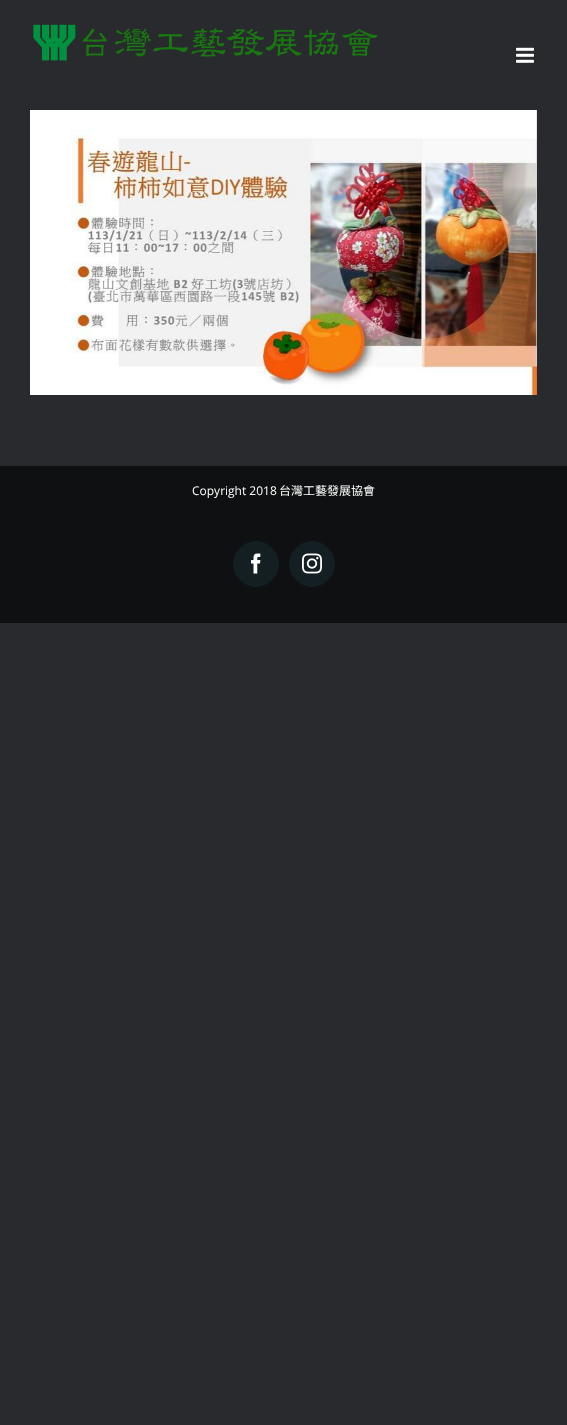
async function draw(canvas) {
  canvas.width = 567
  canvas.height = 1425
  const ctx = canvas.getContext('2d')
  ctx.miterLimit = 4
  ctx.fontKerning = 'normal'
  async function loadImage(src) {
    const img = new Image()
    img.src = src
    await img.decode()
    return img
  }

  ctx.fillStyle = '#282a2d'
  ctx.fillRect(0, 0, 567, 1425)
  ctx.drawImage(await loadImage('image0.png'), 33, 24, 345, 37)
  ctx.drawImage(await loadImage('image1.png'), 516, 47, 18, 16)
  ctx.drawImage(await loadImage('image2.png'), 30, 110, 507, 285)
  ctx.fillStyle = '#0f1011'
  ctx.fillRect(0, 466, 567, 157)
  ctx.font = '12px Open Sans'
  ctx.fillStyle = '#fff'
  ctx.fillText('Copyright 2018', 192, 495)
  ctx.font = '12px Noto Sans CJK TC'
  ctx.fillText('台灣工藝發展協會', 279, 495)
  ctx.fillStyle = '#141f23'
  ctx.beginPath()
  ctx.arc(256, 564, 22.5, 0, 2 * Math.PI)
  ctx.fill()
  ctx.strokeStyle = '#141f23'
  ctx.stroke()
  ctx.drawImage(await loadImage('image3.png'), 251, 553, 10, 21)
  ctx.beginPath()
  ctx.arc(312, 564, 22.5, 0, 2 * Math.PI)
  ctx.fill()
  ctx.stroke()
  ctx.drawImage(await loadImage('image4.png'), 302, 553, 20, 21)
}

draw(document.querySelector('canvas'))
